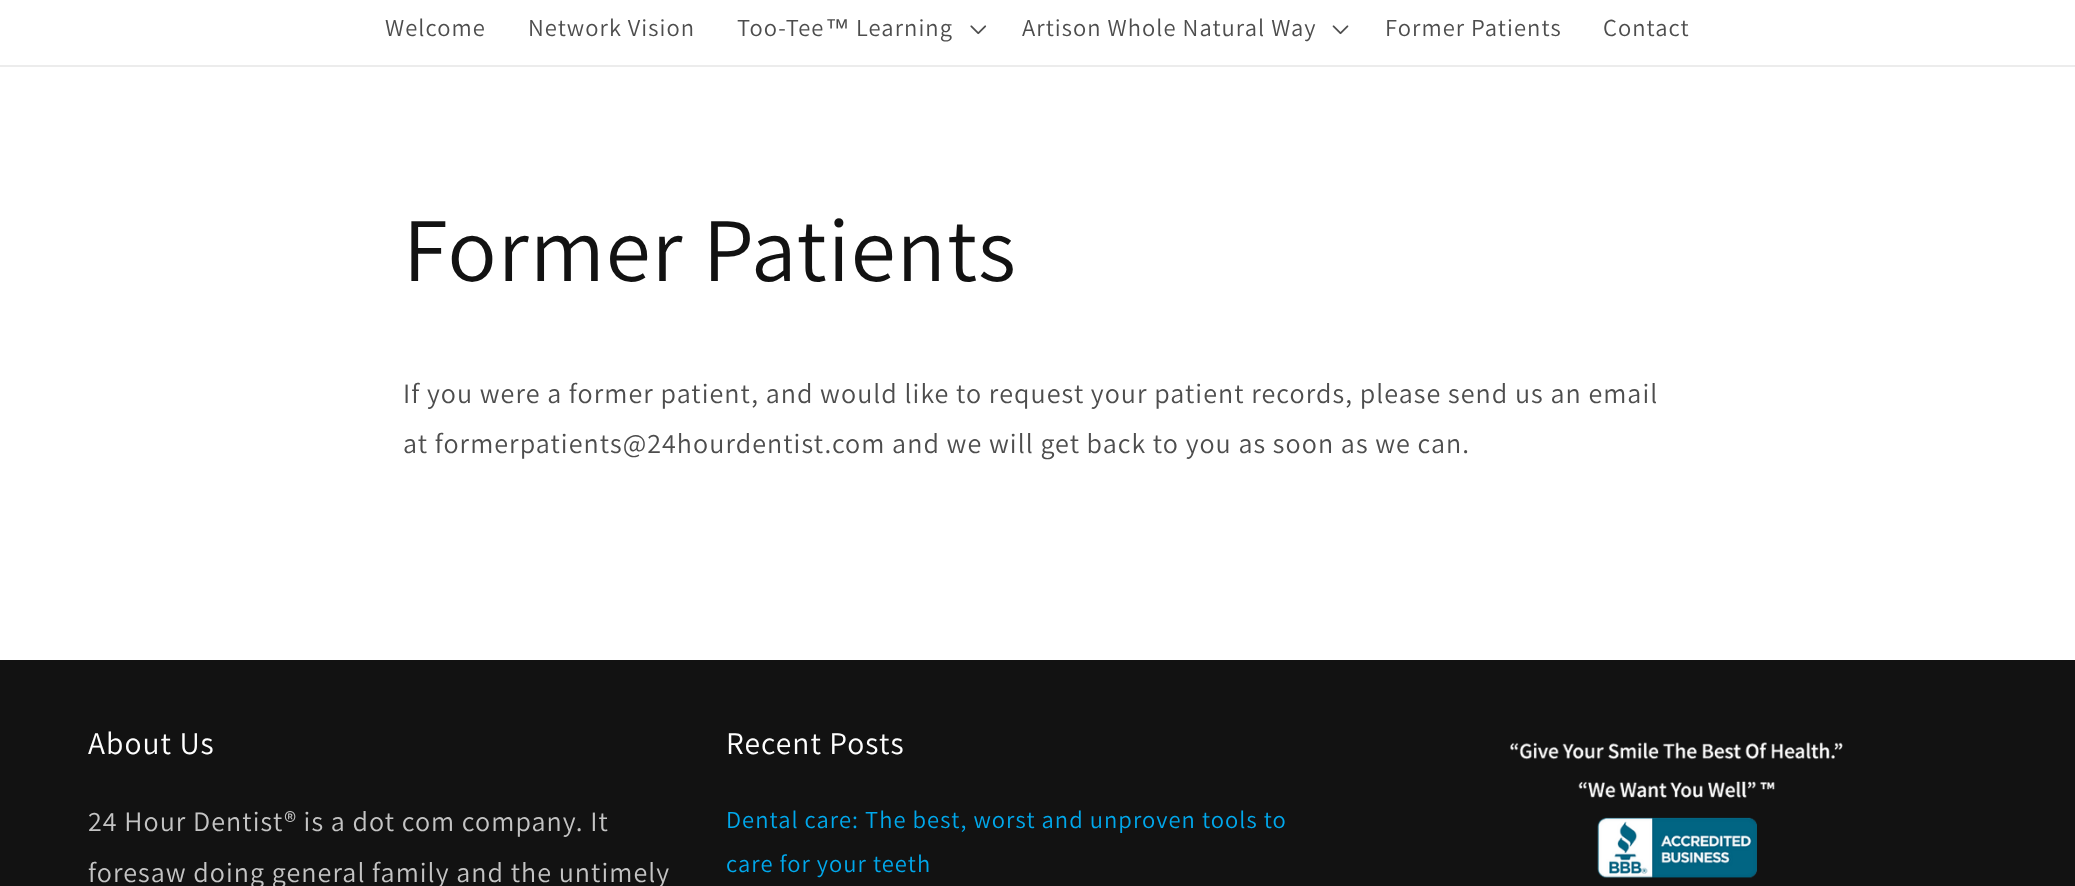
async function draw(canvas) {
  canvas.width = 2075
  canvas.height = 886
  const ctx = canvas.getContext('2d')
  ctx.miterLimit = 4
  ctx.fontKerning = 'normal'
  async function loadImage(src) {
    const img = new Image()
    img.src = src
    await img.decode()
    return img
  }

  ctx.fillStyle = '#fff'
  ctx.fillRect(0, 0, 2075, 886)
  ctx.fillStyle = '#ececec'
  ctx.fillRect(0, 65, 2075, 2)
  ctx.letterSpacing = '1.05px'
  ctx.font = '24.5px Assistant'
  ctx.fillStyle = '#4d4d4d'
  ctx.fillText('Welcome', 385, 36)
  ctx.fillText('Network Vision', 528, 36)
  ctx.fillText('Too-Tee', 737, 36)
  ctx.font = '24.5px Liberation Sans'
  ctx.fillText('™', 825, 36)
  ctx.font = '24.5px Assistant'
  ctx.fillText('Learning', 856, 36)
  ctx.drawImage(await loadImage('image0.png'), 970, 25, 17, 10)
  ctx.fillText('Artison Whole Natural Way', 1022, 36)
  ctx.drawImage(await loadImage('image1.png'), 1332, 25, 17, 10)
  ctx.fillText('Former Patients', 1385, 36)
  ctx.fillText('Contact', 1603, 36)
  ctx.font = '91px Assistant'
  ctx.fillStyle = '#121212'
  ctx.fillText('Former Patients', 403, 281)
  ctx.font = '28px Assistant'
  ctx.fillStyle = '#4d4d4d'
  ctx.fillText('If you were a former patient, and would like to request your patient records, please send us an email', 403, 403)
  ctx.fillText('at formerpatients@24hourdentist.com and we will get back to you as soon as we can.', 403, 453)
  ctx.fillStyle = '#121212'
  ctx.fillRect(0, 660, 2075, 226)
  ctx.font = '31.5px Assistant'
  ctx.fillStyle = '#fff'
  ctx.fillText('About Us', 88, 754)
  ctx.font = '28px Assistant'
  ctx.fillStyle = '#c4c4c4'
  ctx.fillText('24 Hour Dentist® is a dot com company. It', 88, 831)
  ctx.fillText('foresaw doing general family and the untimely', 88, 882)
  ctx.font = '31.5px Assistant'
  ctx.fillStyle = '#fff'
  ctx.fillText('Recent Posts', 726, 754)
  ctx.font = '24.5px Assistant'
  ctx.fillStyle = '#00a8ec'
  ctx.fillText('Dental care: The best, worst and unproven tools to', 726, 828)
  ctx.fillText('care for your teeth', 726, 872)
  ctx.drawImage(await loadImage('image2.png'), 1510, 742, 333, 136)
}

draw(document.querySelector('canvas'))
